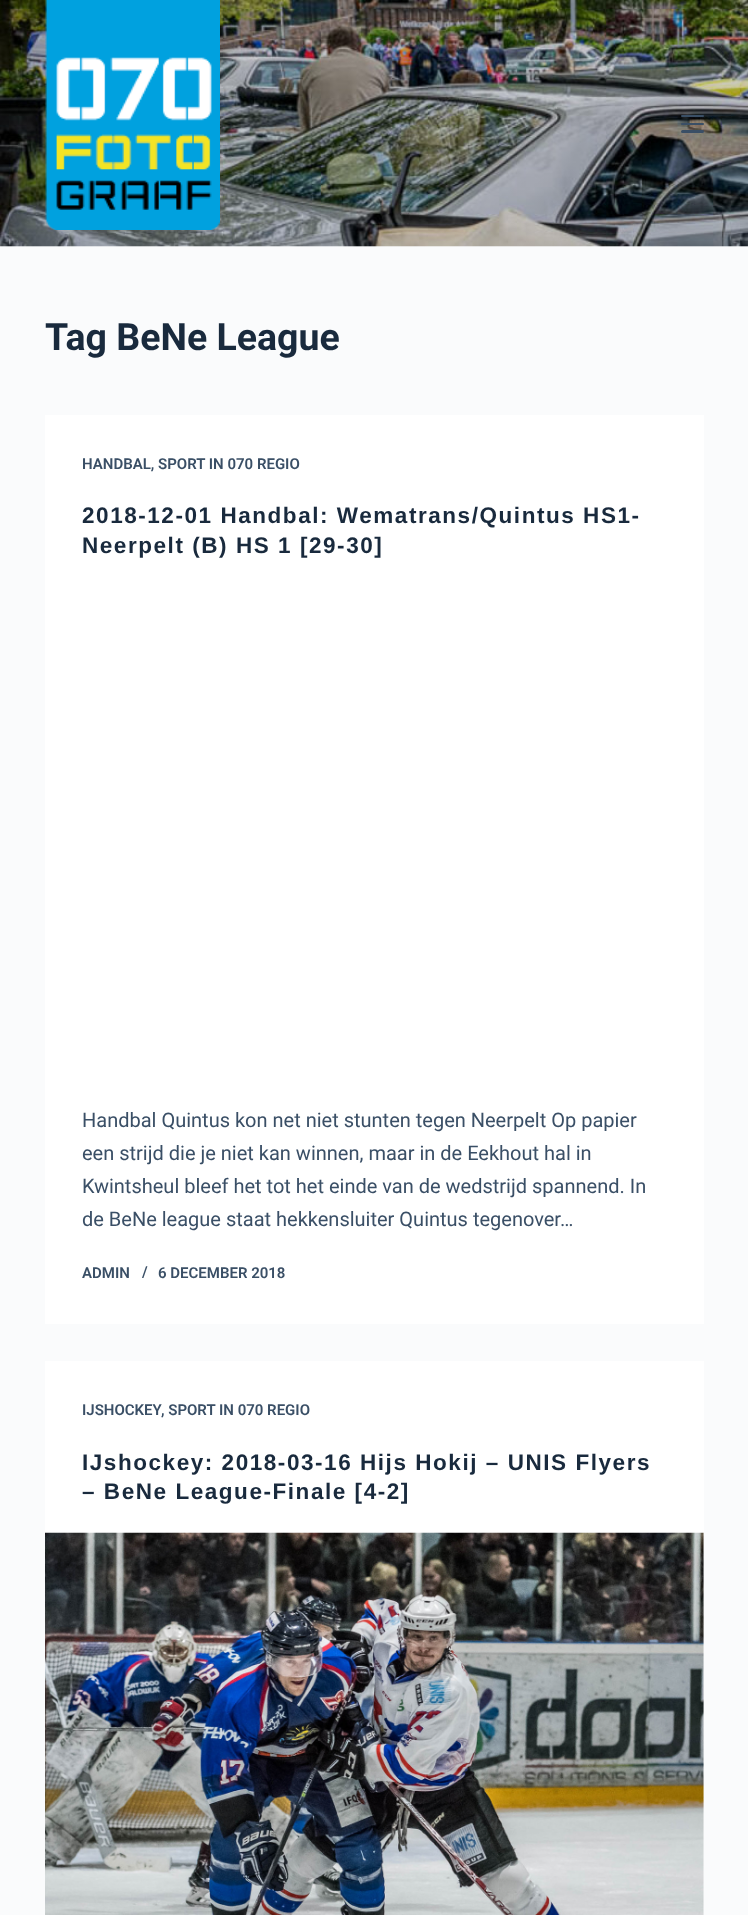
async function draw(canvas) {
  canvas.width = 748
  canvas.height = 1915
  const ctx = canvas.getContext('2d')
  ctx.miterLimit = 4
  ctx.fontKerning = 'normal'
  async function loadImage(src) {
    const img = new Image()
    img.src = src
    await img.decode()
    return img
  }

  ctx.fillStyle = '#fafbfc'
  ctx.fillRect(0, 0, 748, 1915)
  ctx.drawImage(await loadImage('image0.png'), 0, 0, 748, 247)
  ctx.drawImage(await loadImage('image1.png'), 45, 0, 175, 230)
  ctx.fillStyle = '#3a4f66'
  ctx.beginPath()
  ctx.roundRect(681, 115, 23, 2, 1)
  ctx.fill()
  ctx.beginPath()
  ctx.roundRect(681, 123, 23, 2, 1)
  ctx.fill()
  ctx.beginPath()
  ctx.roundRect(681, 130, 23, 3, 1.5)
  ctx.fill()
  ctx.font = 'bold 37.5px Roboto'
  ctx.fillStyle = '#192a3d'
  ctx.fillText('Tag BeNe League', 45, 350)
  ctx.fillStyle = '#fff'
  ctx.fillRect(45, 415, 659, 909)
  ctx.font = '600 15px Roboto'
  ctx.fillStyle = '#3a4f66'
  ctx.fillText('HANDBAL, SPORT IN 070 REGIO', 82, 469)
  ctx.letterSpacing = '1.55px'
  ctx.font = 'bold 22.5px Liberation Sans'
  ctx.fillStyle = '#192a3d'
  ctx.fillText('2018-12-01 Handbal: Wematrans/Quintus HS1-', 82, 523)
  ctx.fillText('Neerpelt (B) HS 1 [29-30]', 82, 553)
  ctx.letterSpacing = '0px'
  ctx.font = '20px Roboto'
  ctx.fillStyle = '#3a4f66'
  ctx.fillText('Handbal Quintus kon net niet stunten tegen Neerpelt Op papier', 82, 1127)
  ctx.fillText('een strijd die je niet kan winnen, maar in de Eekhout hal in', 82, 1160)
  ctx.fillText('Kwintsheul bleef het tot het einde van de wedstrijd spannend. In', 82, 1193)
  ctx.fillText('de BeNe league staat hekkensluiter Quintus tegenover…', 82, 1226)
  ctx.font = '600 15px Roboto'
  ctx.fillText('ADMIN', 82, 1278)
  ctx.fillText('/', 142, 1277)
  ctx.fillText('6 DECEMBER 2018', 158, 1278)
  ctx.fillStyle = '#fff'
  ctx.fillRect(45, 1361, 659, 554)
  ctx.fillStyle = '#3a4f66'
  ctx.fillText('IJSHOCKEY', 82, 1415)
  ctx.fillText(', SPORT IN 070 REGIO', 161, 1415)
  ctx.letterSpacing = '1.55px'
  ctx.font = 'bold 22.5px Liberation Sans'
  ctx.fillStyle = '#192a3d'
  ctx.fillText('IJshockey: 2018-03-16 Hijs Hokij – UNIS Flyers', 82, 1470)
  ctx.fillText('– BeNe League-Finale [4-2]', 82, 1499)
  ctx.drawImage(await loadImage('image2.png'), 45, 1532, 659, 383)
}

draw(document.querySelector('canvas'))
